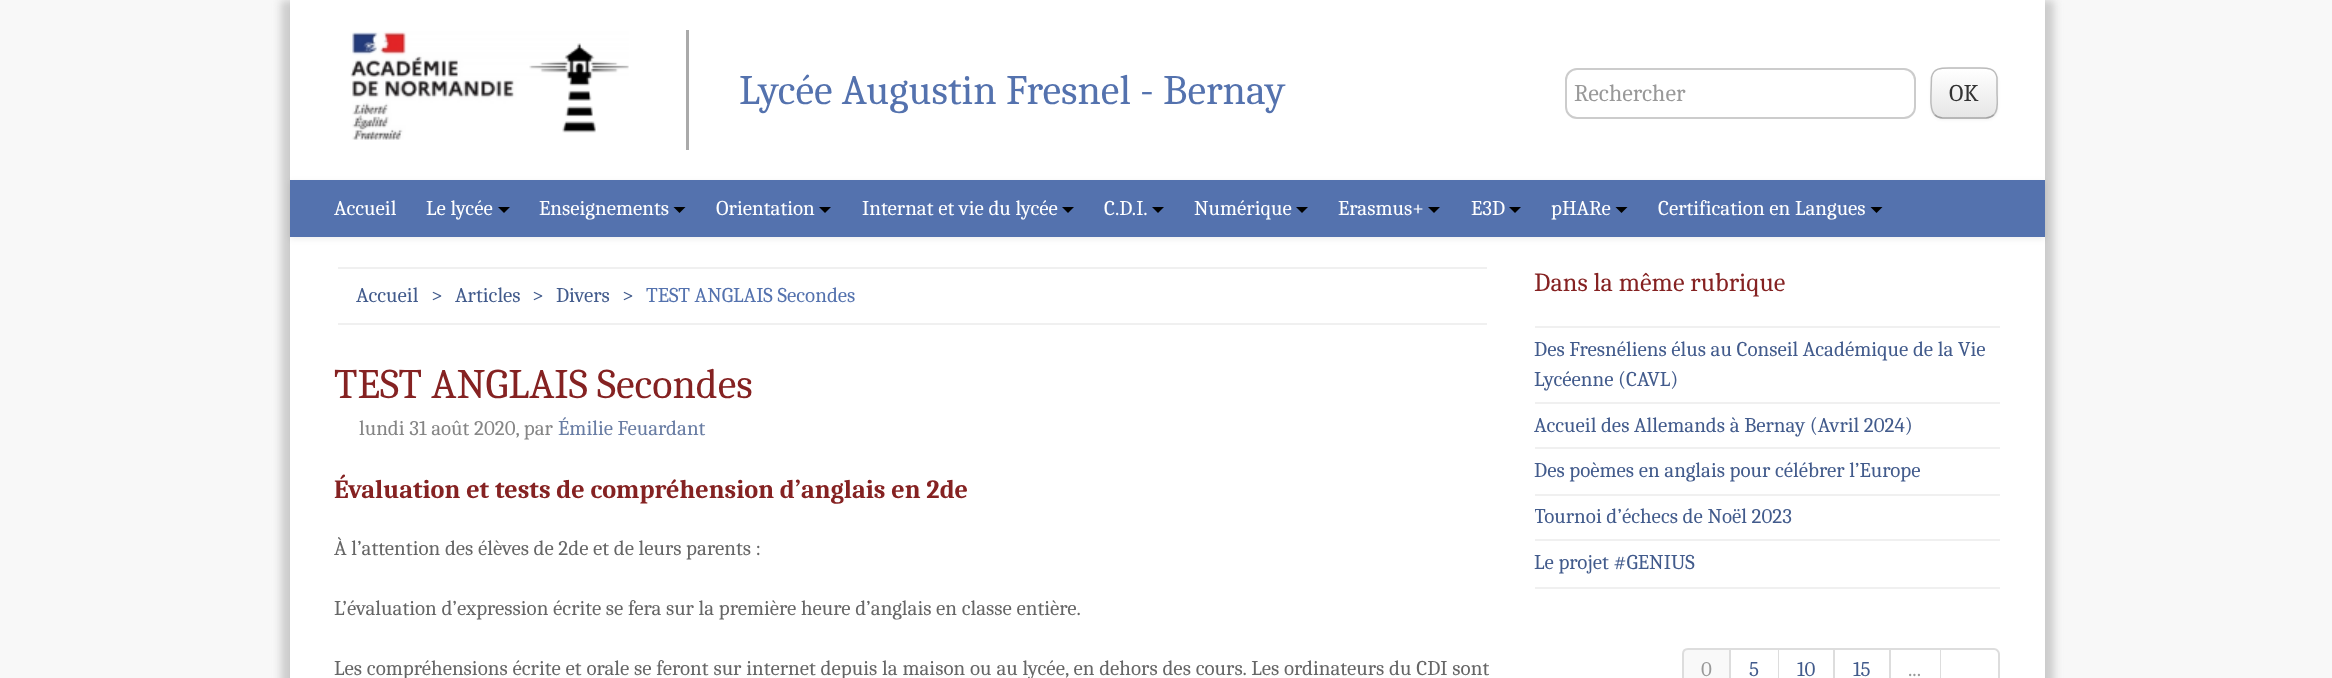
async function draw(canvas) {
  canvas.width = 2332
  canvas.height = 678
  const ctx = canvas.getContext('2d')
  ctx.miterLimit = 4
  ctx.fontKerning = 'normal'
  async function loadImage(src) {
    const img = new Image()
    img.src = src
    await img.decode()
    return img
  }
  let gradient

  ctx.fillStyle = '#f8f8f8'
  ctx.fillRect(0, 0, 2332, 678)
  ctx.fillStyle = '#ccc'
  ctx.filter = 'blur(4.5px)'
  ctx.beginPath()
  ctx.rect(281, 0, 1755, 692)
  ctx.fill()
  ctx.filter = 'none'
  ctx.filter = 'blur(4.5px)'
  ctx.beginPath()
  ctx.rect(299, 0, 1755, 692)
  ctx.fill()
  ctx.filter = 'none'
  ctx.fillStyle = '#fff'
  ctx.fillRect(290, 0, 1755, 678)
  ctx.drawImage(await loadImage('image0.png'), 350, 31, 279, 109)
  ctx.fillStyle = '#aaa'
  ctx.fillRect(686, 30, 3, 120)
  ctx.font = '42px Caladea'
  ctx.fillStyle = '#5472ae'
  ctx.fillText('Lycée Augustin Fresnel - Bernay', 739, 104)
  ctx.fillStyle = '#ececec'
  ctx.beginPath()
  ctx.moveTo(1576, 70)
  ctx.lineTo(1904, 70)
  ctx.bezierCurveTo(1909, 70, 1914, 75, 1914, 81)
  ctx.bezierCurveTo(1914, 75, 1911, 70, 1905, 69)
  ctx.lineTo(1575, 69)
  ctx.bezierCurveTo(1569, 70, 1566, 75, 1566, 81)
  ctx.bezierCurveTo(1566, 75, 1571, 70, 1576, 70)
  ctx.closePath()
  ctx.fill()
  ctx.beginPath()
  ctx.roundRect(1566, 69, 349, 49, 11)
  ctx.strokeStyle = '#ccc'
  ctx.lineWidth = 2
  ctx.stroke()
  ctx.font = '24px Caladea'
  ctx.fillStyle = '#999'
  ctx.fillText('Rechercher', 1574, 101)
  ctx.fillStyle = '#0000000d'
  ctx.filter = 'blur(1.5px)'
  ctx.beginPath()
  ctx.roundRect(1931, 69, 67, 51, 12)
  ctx.fill()
  ctx.filter = 'none'
  ctx.fillStyle = '#f5f5f5'
  ctx.beginPath()
  ctx.roundRect(1931, 68, 67, 51, 12)
  ctx.fill()
  ctx.save()
  ctx.beginPath()
  ctx.roundRect(1931, 68, 67, 51, 12)
  ctx.clip()
  gradient = ctx.createLinearGradient(1964, 69, 1964, 117)
  gradient.addColorStop(0, '#fff')
  gradient.addColorStop(1, '#e6e6e6')
  ctx.fillStyle = gradient
  ctx.fillRect(1931, 69, 67, 48)
  ctx.restore()
  ctx.fillStyle = '#ffffff33'
  ctx.beginPath()
  ctx.moveTo(1942, 70)
  ctx.lineTo(1971, 70)
  ctx.bezierCurveTo(1980, 70, 1994, 67, 1996, 79)
  ctx.lineTo(1996, 104)
  ctx.lineTo(1995, 112)
  ctx.bezierCurveTo(1996, 110, 1997, 108, 1997, 106)
  ctx.lineTo(1997, 80)
  ctx.bezierCurveTo(1997, 74, 1992, 69, 1986, 69)
  ctx.lineTo(1943, 69)
  ctx.bezierCurveTo(1937, 69, 1932, 74, 1932, 80)
  ctx.lineTo(1932, 81)
  ctx.bezierCurveTo(1932, 75, 1937, 70, 1942, 70)
  ctx.closePath()
  ctx.fill()
  ctx.beginPath()
  ctx.moveTo(1994, 114.5)
  ctx.bezierCurveTo(1992, 116.5, 1989, 118, 1986, 118)
  ctx.lineTo(1942.5, 118)
  ctx.bezierCurveTo(1939.5, 118, 1936.5, 116.5, 1934.5, 114.5)
  ctx.strokeStyle = '#a2a2a2'
  ctx.lineWidth = 1.5
  ctx.stroke()
  ctx.beginPath()
  ctx.moveTo(1934.5, 114.5)
  ctx.bezierCurveTo(1929.5, 109.5, 1931, 99.5, 1931, 93)
  ctx.lineTo(1931.5, 77.5)
  ctx.bezierCurveTo(1933.5, 67.5, 1942, 68, 1950, 68)
  ctx.lineTo(1979, 68)
  ctx.bezierCurveTo(1986.5, 68, 1995, 67.5, 1997, 77.5)
  ctx.lineTo(1997, 93)
  ctx.bezierCurveTo(1997, 99.5, 1999, 109.5, 1994, 114.5)
  ctx.strokeStyle = '#bbb'
  ctx.stroke()
  ctx.fillStyle = '#333'
  ctx.fillText('OK', 1949, 101)
  ctx.fillStyle = '#00000012'
  ctx.filter = 'blur(3px)'
  ctx.beginPath()
  ctx.rect(290, 182, 1755, 57)
  ctx.fill()
  ctx.filter = 'none'
  ctx.fillStyle = '#5472ae'
  ctx.fillRect(290, 180, 1755, 57)
  ctx.font = '21px Caladea'
  ctx.fillStyle = '#fff'
  ctx.fillText('Accueil', 334, 215)
  ctx.fillText('Le lycée', 426, 215)
  ctx.fillStyle = '#000'
  ctx.beginPath()
  ctx.moveTo(498, 207)
  ctx.lineTo(510, 207)
  ctx.lineTo(504, 213)
  ctx.closePath()
  ctx.fill()
  ctx.fillStyle = '#fff'
  ctx.fillText('Enseignements', 539, 215)
  ctx.fillStyle = '#000'
  ctx.beginPath()
  ctx.moveTo(673.5, 207)
  ctx.lineTo(685.5, 207)
  ctx.lineTo(679.5, 213)
  ctx.closePath()
  ctx.fill()
  ctx.fillStyle = '#fff'
  ctx.fillText('Orientation', 716, 215)
  ctx.fillStyle = '#000'
  ctx.beginPath()
  ctx.moveTo(819, 207)
  ctx.lineTo(831, 207)
  ctx.lineTo(825, 213)
  ctx.closePath()
  ctx.fill()
  ctx.fillStyle = '#fff'
  ctx.fillText('Internat et vie du lycée', 862, 215)
  ctx.fillStyle = '#000'
  ctx.beginPath()
  ctx.moveTo(1062, 207)
  ctx.lineTo(1074, 207)
  ctx.lineTo(1068, 213)
  ctx.closePath()
  ctx.fill()
  ctx.fillStyle = '#fff'
  ctx.fillText('C.D.I.', 1104, 215)
  ctx.fillStyle = '#000'
  ctx.beginPath()
  ctx.moveTo(1152, 207)
  ctx.lineTo(1164, 207)
  ctx.lineTo(1158, 213)
  ctx.closePath()
  ctx.fill()
  ctx.fillStyle = '#fff'
  ctx.fillText('Numérique', 1194, 215)
  ctx.fillStyle = '#000'
  ctx.beginPath()
  ctx.moveTo(1296, 207)
  ctx.lineTo(1308, 207)
  ctx.lineTo(1302, 213)
  ctx.closePath()
  ctx.fill()
  ctx.fillStyle = '#fff'
  ctx.fillText('Erasmus+', 1338, 215)
  ctx.fillStyle = '#000'
  ctx.beginPath()
  ctx.moveTo(1428, 207)
  ctx.lineTo(1440, 207)
  ctx.lineTo(1434, 213)
  ctx.closePath()
  ctx.fill()
  ctx.fillStyle = '#fff'
  ctx.fillText('E3D', 1471, 215)
  ctx.fillStyle = '#000'
  ctx.beginPath()
  ctx.moveTo(1509, 207)
  ctx.lineTo(1521, 207)
  ctx.lineTo(1515, 213)
  ctx.closePath()
  ctx.fill()
  ctx.fillStyle = '#fff'
  ctx.fillText('pHARe', 1551, 215)
  ctx.fillStyle = '#000'
  ctx.beginPath()
  ctx.moveTo(1615.5, 207)
  ctx.lineTo(1627.5, 207)
  ctx.lineTo(1621.5, 213)
  ctx.closePath()
  ctx.fill()
  ctx.fillStyle = '#fff'
  ctx.fillText('Certification en Langues', 1658, 215)
  ctx.fillStyle = '#000'
  ctx.beginPath()
  ctx.moveTo(1870.5, 207)
  ctx.lineTo(1882.5, 207)
  ctx.lineTo(1876.5, 213)
  ctx.closePath()
  ctx.fill()
  ctx.fillStyle = '#f0f0f0'
  ctx.fillRect(338, 267, 1149, 2)
  ctx.fillRect(338, 323, 1149, 2)
  ctx.fillStyle = '#425b8c'
  ctx.fillText('Accueil', 356, 302)
  ctx.fillText('>', 431, 302)
  ctx.fillText('Articles', 455, 302)
  ctx.fillText('>', 532, 302)
  ctx.fillText('Divers', 556, 302)
  ctx.fillText('>', 622, 302)
  ctx.fillStyle = '#5472ae'
  ctx.fillText('TEST ANGLAIS Secondes', 646, 302)
  ctx.font = '42px Caladea'
  ctx.fillStyle = '#852222'
  ctx.fillText('TEST ANGLAIS Secondes', 334, 398)
  ctx.font = '21px Caladea'
  ctx.fillStyle = '#858585'
  ctx.fillText('lundi 31 août 2020, par', 359, 435)
  ctx.fillStyle = '#687ca3'
  ctx.fillText('Émilie Feuardant', 558, 435)
  ctx.font = 'bold 26.25px Caladea'
  ctx.fillStyle = '#852222'
  ctx.fillText('Évaluation et tests de compréhension d’anglais en 2de', 334, 498)
  ctx.font = '21px Caladea'
  ctx.fillStyle = '#666'
  ctx.fillText('À l’attention des élèves de 2de et de leurs parents :', 334, 555)
  ctx.fillText('L’évaluation d’expression écrite se fera sur la première heure d’anglais en classe entière.', 334, 615)
  ctx.wordSpacing = '0.2px'
  ctx.fillText('Les compréhensions écrite et orale se feront sur internet depuis la maison ou au lycée, en dehors des cours. Les ordinateurs du CDI sont', 334, 675)
  ctx.wordSpacing = '0px'
  ctx.font = '26.25px Caladea'
  ctx.fillStyle = '#852222'
  ctx.fillText('Dans la même rubrique', 1534, 291)
  ctx.fillStyle = '#f0f0f0'
  ctx.fillRect(1535, 326, 465, 2)
  ctx.font = '21px Caladea'
  ctx.fillStyle = '#425b8c'
  ctx.fillText('Des Fresnéliens élus au Conseil Académique de la Vie', 1534, 356)
  ctx.fillText('Lycéenne (CAVL)', 1534, 386)
  ctx.fillStyle = '#f0f0f0'
  ctx.fillRect(1535, 402, 465, 2)
  ctx.fillStyle = '#425b8c'
  ctx.fillText('Accueil des Allemands à Bernay (Avril 2024)', 1534, 432)
  ctx.fillStyle = '#f0f0f0'
  ctx.fillRect(1535, 447, 465, 2)
  ctx.fillStyle = '#425b8c'
  ctx.fillText('Des poèmes en anglais pour célébrer l’Europe', 1534, 477)
  ctx.fillStyle = '#f0f0f0'
  ctx.fillRect(1535, 494, 465, 2)
  ctx.save()
  ctx.beginPath()
  ctx.rect(1535, 495, 465, 45)
  ctx.clip()
  ctx.fillStyle = '#425b8c'
  ctx.fillText('Tournoi d’échecs de Noël 2023', 1534, 523)
  ctx.restore()
  ctx.fillRect(1535, 539, 465, 2)
  ctx.fillRect(1535, 587, 465, 2)
  ctx.fillStyle = '#425b8c'
  ctx.fillText('Le projet #GENIUS', 1534, 569)
  ctx.fillStyle = '#f9f9f9'
  ctx.beginPath()
  ctx.moveTo(1688, 649)
  ctx.lineTo(1730, 649)
  ctx.lineTo(1730, 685)
  ctx.lineTo(1688, 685)
  ctx.bezierCurveTo(1685, 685, 1683, 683, 1683, 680)
  ctx.lineTo(1683, 654)
  ctx.bezierCurveTo(1683, 651, 1685, 649, 1688, 649)
  ctx.closePath()
  ctx.fill()
  ctx.strokeStyle = '#ddd'
  ctx.lineWidth = 2
  ctx.stroke()
  ctx.fillStyle = '#999'
  ctx.fillText('0', 1701, 676)
  ctx.fillStyle = '#ddd'
  ctx.fillRect(1731, 648, 159, 2)
  ctx.fillRect(1778, 648, 1, 30)
  ctx.fillStyle = '#425b8c'
  ctx.fillText('5', 1749, 676)
  ctx.fillStyle = '#ddd'
  ctx.fillRect(1833, 648, 2, 30)
  ctx.fillStyle = '#425b8c'
  ctx.fillText('10', 1797, 676)
  ctx.fillStyle = '#ddd'
  ctx.fillRect(1889, 648, 2, 30)
  ctx.fillStyle = '#425b8c'
  ctx.fillText('15', 1853, 676)
  ctx.fillStyle = '#ddd'
  ctx.fillRect(1890, 648, 51, 2)
  ctx.fillRect(1940, 648, 1, 30)
  ctx.fillStyle = '#999'
  ctx.fillText('...', 1908, 676)
  ctx.fillStyle = '#ddd'
  ctx.beginPath()
  ctx.moveTo(1941, 648)
  ctx.lineTo(1994, 648)
  ctx.bezierCurveTo(1997, 648, 2000, 651, 2000, 654)
  ctx.lineTo(2000, 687)
  ctx.bezierCurveTo(2000, 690, 1997, 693, 1994, 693)
  ctx.lineTo(1941, 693)
  ctx.closePath()
  ctx.moveTo(1941, 650)
  ctx.lineTo(1994, 650)
  ctx.bezierCurveTo(1996, 650, 1998, 652, 1998, 654)
  ctx.lineTo(1998, 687)
  ctx.bezierCurveTo(1998, 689, 1996, 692, 1994, 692)
  ctx.lineTo(1941, 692)
  ctx.closePath()
  ctx.fill('evenodd')
}

draw(document.querySelector('canvas'))
